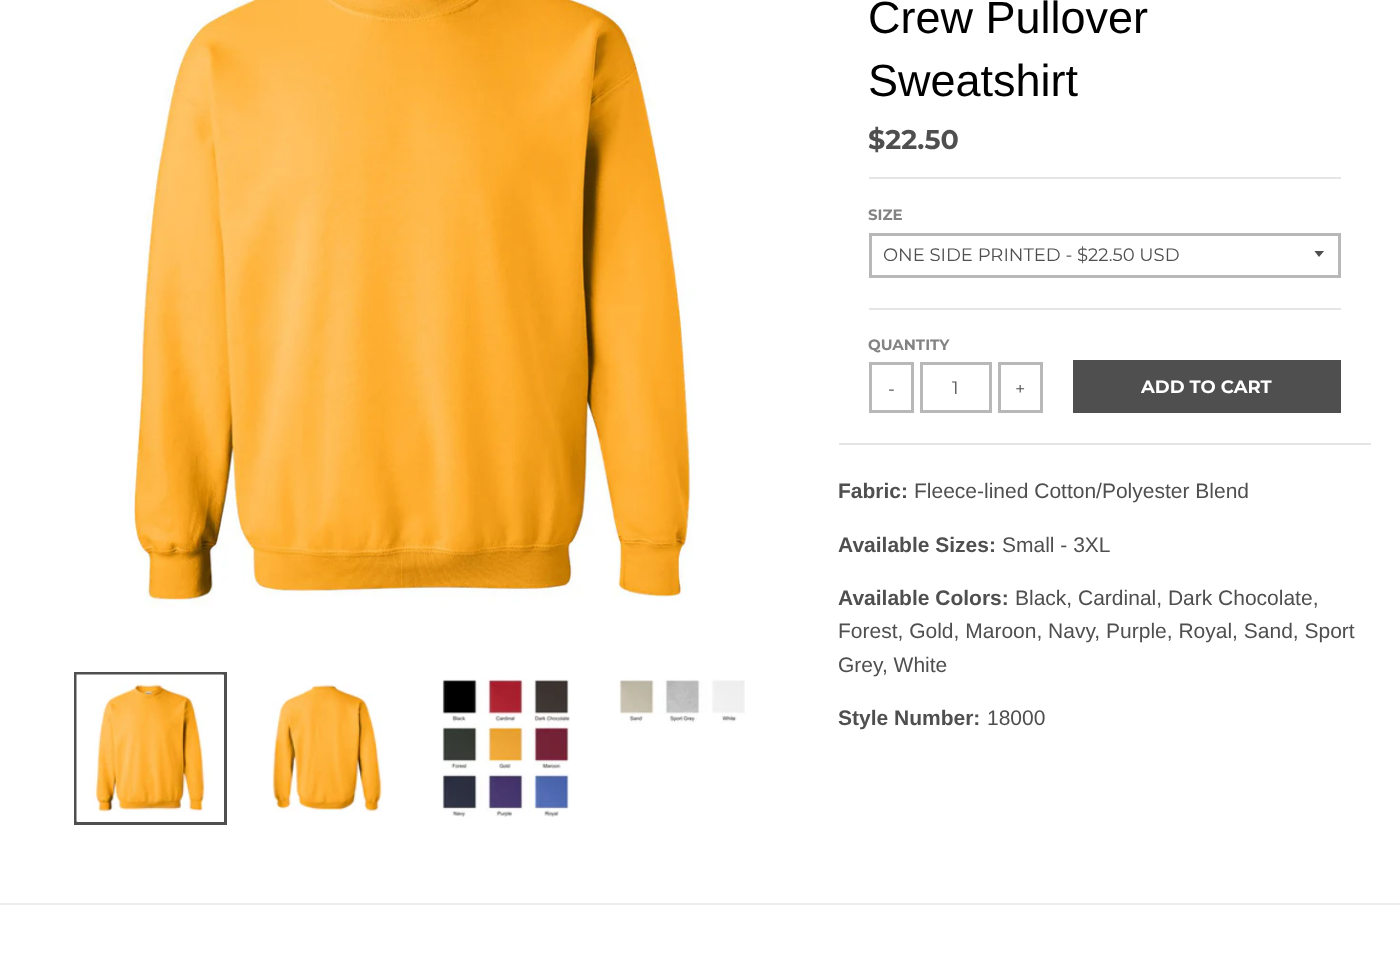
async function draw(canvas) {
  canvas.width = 1400
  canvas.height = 980
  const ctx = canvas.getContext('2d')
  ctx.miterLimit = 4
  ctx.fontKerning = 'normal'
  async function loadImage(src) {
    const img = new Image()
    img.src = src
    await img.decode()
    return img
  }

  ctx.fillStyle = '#fff'
  ctx.fillRect(0, 0, 1400, 980)
  ctx.fillStyle = '#ededed'
  ctx.fillRect(0, 903, 1400, 2)
  ctx.drawImage(await loadImage('image0.png'), 129, 0, 565, 608)
  ctx.strokeStyle = '#4f4f4f'
  ctx.lineWidth = 3
  ctx.strokeRect(75.5, 673.5, 150, 150)
  ctx.drawImage(await loadImage('image1.png'), 76, 674, 148, 148)
  ctx.drawImage(await loadImage('image2.png'), 272, 684, 111, 129)
  ctx.drawImage(await loadImage('image3.png'), 442, 679, 128, 138)
  ctx.drawImage(await loadImage('image4.png'), 619, 679, 126, 45)
  ctx.fillStyle = '#e5e5e5'
  ctx.fillRect(839, 443, 532, 2)
  ctx.font = '45px Liberation Sans'
  ctx.fillStyle = '#000'
  ctx.fillText('Crew Pullover', 868, 33)
  ctx.fillText('Sweatshirt', 868, 96)
  ctx.fillStyle = '#e5e5e5'
  ctx.fillRect(869, 177, 472, 2)
  ctx.font = 'bold 27px Montserrat'
  ctx.fillStyle = '#4f4f4f'
  ctx.fillText('$22.50', 868, 149)
  ctx.fillStyle = '#e5e5e5'
  ctx.fillRect(869, 308, 472, 2)
  ctx.font = 'bold 15px Montserrat'
  ctx.fillStyle = '#838383'
  ctx.fillText('SIZE', 868, 220)
  ctx.save()
  ctx.beginPath()
  ctx.rect(1314, 251, 12, 7)
  ctx.clip()
  ctx.fillStyle = '#4f4f4f'
  ctx.beginPath()
  ctx.moveTo(1314, 250.5)
  ctx.lineTo(1319, 257)
  ctx.lineTo(1324.5, 250.5)
  ctx.closePath()
  ctx.fill()
  ctx.restore()
  ctx.strokeStyle = '#b8b8b8'
  ctx.strokeRect(870.5, 234.5, 469, 42)
  ctx.font = '18px Montserrat'
  ctx.fillStyle = '#4f4f4f'
  ctx.fillText('ONE SIDE PRINTED - $22.50 USD', 883, 261)
  ctx.font = 'bold 15px Montserrat'
  ctx.fillStyle = '#838383'
  ctx.fillText('QUANTITY', 868, 350)
  ctx.strokeRect(870.5, 363.5, 42, 48)
  ctx.font = '18px Montserrat'
  ctx.fillStyle = '#4f4f4f'
  ctx.fillText('-', 888, 395)
  ctx.strokeRect(921.5, 363.5, 69, 48)
  ctx.fillText('1', 952, 394)
  ctx.strokeRect(999.5, 363.5, 42, 48)
  ctx.fillText('+', 1015, 395)
  ctx.fillRect(1073, 360, 268, 53)
  ctx.font = 'bold 18px Montserrat'
  ctx.fillStyle = '#fff'
  ctx.fillText('ADD TO CART', 1141, 393)
  ctx.font = 'bold 21px Liberation Sans'
  ctx.fillStyle = '#4f4f4f'
  ctx.fillText('Fabric:', 838, 498)
  ctx.font = '21px Liberation Sans'
  ctx.fillText('Fleece-lined Cotton/Polyester Blend', 914, 498)
  ctx.font = 'bold 21px Liberation Sans'
  ctx.fillText('Available Sizes:', 838, 552)
  ctx.font = '21px Liberation Sans'
  ctx.fillText('Small - 3XL', 1002, 552)
  ctx.font = 'bold 21px Liberation Sans'
  ctx.fillText('Available Colors:', 838, 605)
  ctx.font = '21px Liberation Sans'
  ctx.fillText('Black, Cardinal, Dark Chocolate,', 1015, 605)
  ctx.fillText('Forest, Gold, Maroon, Navy, Purple, Royal, Sand, Sport', 838, 638)
  ctx.fillText('Grey, White', 838, 672)
  ctx.font = 'bold 21px Liberation Sans'
  ctx.fillText('Style Number:', 838, 725)
  ctx.font = '21px Liberation Sans'
  ctx.fillText('18000', 987, 725)
}

draw(document.querySelector('canvas'))
